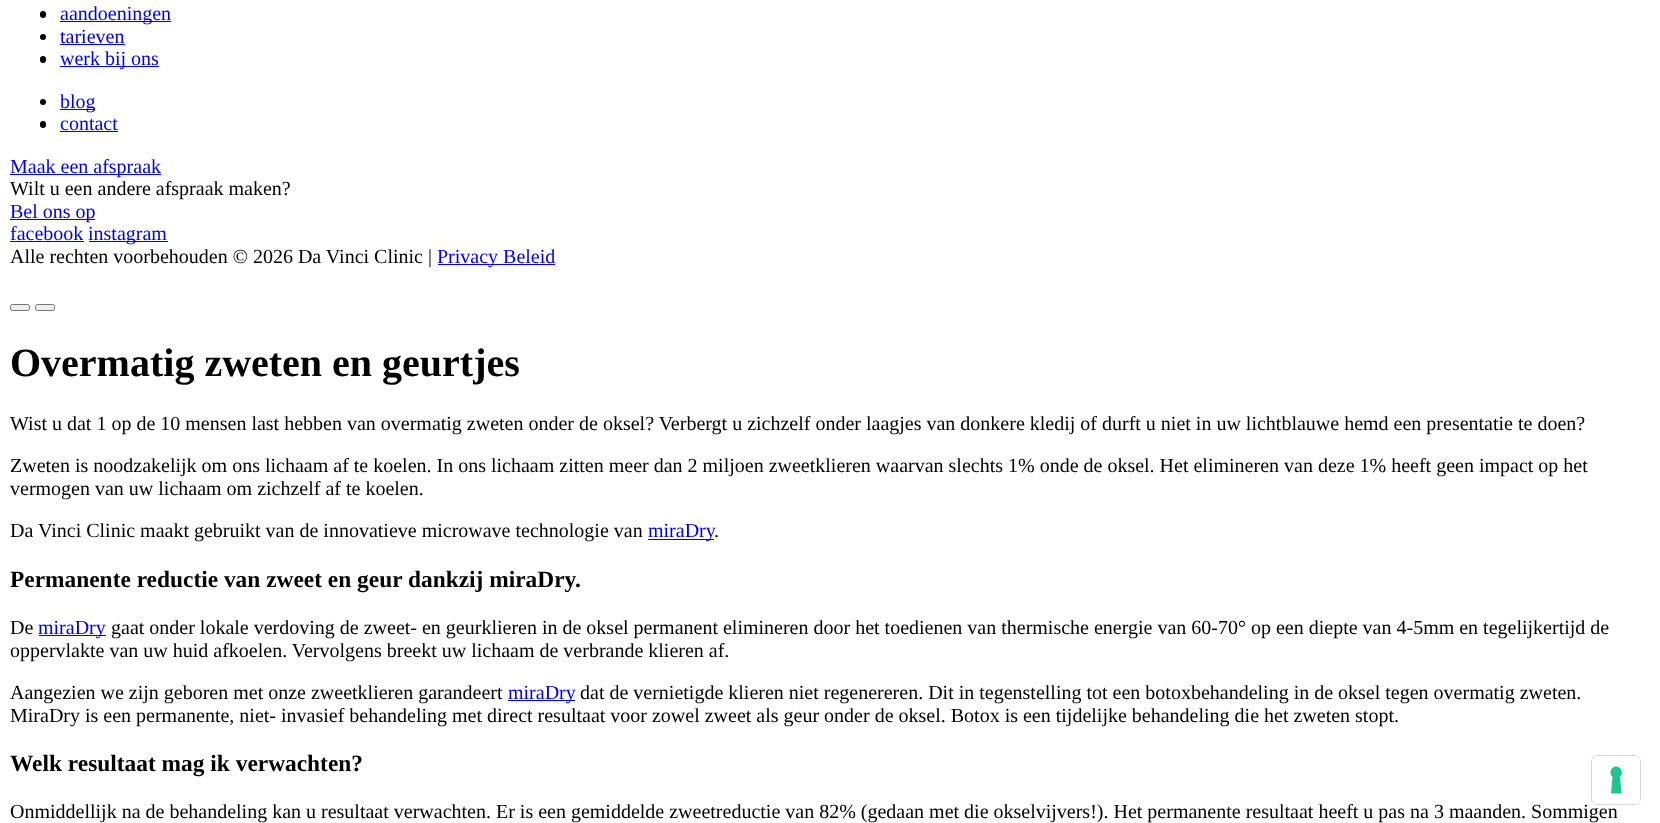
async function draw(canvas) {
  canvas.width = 1660
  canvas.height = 823
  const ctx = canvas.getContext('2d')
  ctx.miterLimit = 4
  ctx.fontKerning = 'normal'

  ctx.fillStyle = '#fff'
  ctx.fillRect(0, 0, 1660, 823)
  ctx.fillStyle = '#000'
  ctx.beginPath()
  ctx.roundRect(40, 11, 6, 7, 3)
  ctx.fill()
  ctx.fillStyle = '#00e'
  ctx.fillRect(60, 21, 111, 1)
  ctx.font = '20px Liberation Serif'
  ctx.fillText('aandoeningen', 60, 20)
  ctx.fillStyle = '#000'
  ctx.beginPath()
  ctx.arc(43, 37, 3, 0, 2 * Math.PI)
  ctx.fill()
  ctx.fillStyle = '#00e'
  ctx.fillText('tarieven', 60, 43)
  ctx.fillRect(60, 44, 65, 1)
  ctx.fillStyle = '#000'
  ctx.beginPath()
  ctx.roundRect(40, 56, 6, 7, 3)
  ctx.fill()
  ctx.fillStyle = '#00e'
  ctx.fillRect(60, 66, 99, 1)
  ctx.fillText('werk bij ons', 60, 65)
  ctx.fillStyle = '#000'
  ctx.beginPath()
  ctx.arc(43, 102, 3, 0, 2 * Math.PI)
  ctx.fill()
  ctx.fillStyle = '#00e'
  ctx.fillRect(60, 109, 35, 1)
  ctx.fillText('blog', 60, 108)
  ctx.fillStyle = '#000'
  ctx.beginPath()
  ctx.roundRect(40, 121, 6, 7, 3)
  ctx.fill()
  ctx.fillStyle = '#00e'
  ctx.fillText('contact', 60, 130)
  ctx.fillRect(60, 131, 58, 1)
  ctx.fillRect(10, 174, 151, 1)
  ctx.fillText('Maak een afspraak', 10, 173)
  ctx.fillStyle = '#000'
  ctx.fillText('Wilt u een andere afspraak maken?', 10, 195)
  ctx.fillStyle = '#00e'
  ctx.fillRect(10, 219, 85, 1)
  ctx.fillText('Bel ons op', 10, 218)
  ctx.fillText('facebook', 10, 240)
  ctx.fillRect(10, 241, 74, 1)
  ctx.fillRect(89, 241, 79, 1)
  ctx.fillText('instagram', 88, 240)
  ctx.fillStyle = '#000'
  ctx.fillText('Alle rechten voorbehouden © 2026 Da Vinci Clinic |', 10, 263)
  ctx.fillStyle = '#00e'
  ctx.fillRect(438, 264, 117, 1)
  ctx.fillText('Privacy Beleid', 437, 263)
  ctx.fillStyle = '#efefef'
  ctx.beginPath()
  ctx.roundRect(10.5, 304.5, 19, 6, 2)
  ctx.fill()
  ctx.strokeStyle = '#767676'
  ctx.stroke()
  ctx.beginPath()
  ctx.roundRect(35.5, 304.5, 19, 6, 2)
  ctx.fill()
  ctx.stroke()
  ctx.font = 'bold 40px Liberation Serif'
  ctx.fillStyle = '#000'
  ctx.fillText('Overmatig zweten en geurtjes', 10, 376)
  ctx.font = '20px Liberation Serif'
  ctx.fillText('Wist u dat 1 op de 10 mensen last hebben van overmatig zweten onder de oksel? Verbergt u zichzelf onder laagjes van donkere kledij of durft u niet in uw lichtblauwe hemd een presentatie te doen?', 10, 430)
  ctx.fillText('Zweten is noodzakelijk om ons lichaam af te koelen. In ons lichaam zitten meer dan 2 miljoen zweetklieren waarvan slechts 1% onde de oksel. Het elimineren van deze 1% heeft geen impact op het', 10, 472)
  ctx.fillText('vermogen van uw lichaam om zichzelf af te koelen.', 10, 495)
  ctx.fillText('Da Vinci Clinic maakt gebruikt van de innovatieve microwave technologie van', 10, 537)
  ctx.fillStyle = '#00e'
  ctx.fillRect(648, 539, 66, 1)
  ctx.fillText('miraDry', 648, 537)
  ctx.fillStyle = '#000'
  ctx.fillText('.', 714, 537)
  ctx.font = 'bold 23.4px Liberation Serif'
  ctx.fillText('Permanente reductie van zweet en geur dankzij miraDry.', 10, 587)
  ctx.font = '20px Liberation Serif'
  ctx.fillText('De', 10, 634)
  ctx.fillStyle = '#00e'
  ctx.fillRect(39, 635, 67, 1)
  ctx.fillText('miraDry', 38, 634)
  ctx.fillStyle = '#000'
  ctx.fillText('gaat onder lokale verdoving de zweet- en geurklieren in de oksel permanent elimineren door het toedienen van thermische energie van 60-70° op een diepte van 4-5mm en tegelijkertijd de', 111, 634)
  ctx.fillText('oppervlakte van uw huid afkoelen. Vervolgens breekt uw lichaam de verbrande klieren af.', 10, 657)
  ctx.fillText('Aangezien we zijn geboren met onze zweetklieren garandeert', 10, 699)
  ctx.fillStyle = '#00e'
  ctx.fillRect(508, 700, 67, 1)
  ctx.fillText('miraDry', 508, 699)
  ctx.fillStyle = '#000'
  ctx.fillText('dat de vernietigde klieren niet regenereren. Dit in tegenstelling tot een botoxbehandeling in de oksel tegen overmatig zweten.', 580, 699)
  ctx.fillText('MiraDry is een permanente, niet- invasief behandeling met direct resultaat voor zowel zweet als geur onder de oksel. Botox is een tijdelijke behandeling die het zweten stopt.', 10, 722)
  ctx.font = 'bold 23.4px Liberation Serif'
  ctx.fillText('Welk resultaat mag ik verwachten?', 10, 771)
  ctx.font = '20px Liberation Serif'
  ctx.fillText('Onmiddellijk na de behandeling kan u resultaat verwachten. Er is een gemiddelde zweetreductie van 82% (gedaan met die okselvijvers!). Het permanente resultaat heeft u pas na 3 maanden. Sommigen', 10, 818)
  ctx.beginPath()
  ctx.roundRect(1591.5, 755.5, 49, 49, 5.5)
  ctx.strokeStyle = '#d9d9d9'
  ctx.stroke()
  ctx.fillStyle = '#fff'
  ctx.beginPath()
  ctx.roundRect(1593, 756, 47, 48, 5)
  ctx.fill()
  ctx.fillStyle = '#1cc691'
  ctx.beginPath()
  ctx.moveTo(1616, 766.5)
  ctx.bezierCurveTo(1621.5, 766.5, 1624, 773.5, 1620, 777)
  ctx.lineTo(1621.5, 793.5)
  ctx.lineTo(1611, 793.5)
  ctx.lineTo(1612.5, 777)
  ctx.bezierCurveTo(1608.5, 773.5, 1611, 766.5, 1616, 766.5)
  ctx.closePath()
  ctx.fill('evenodd')
}

draw(document.querySelector('canvas'))
